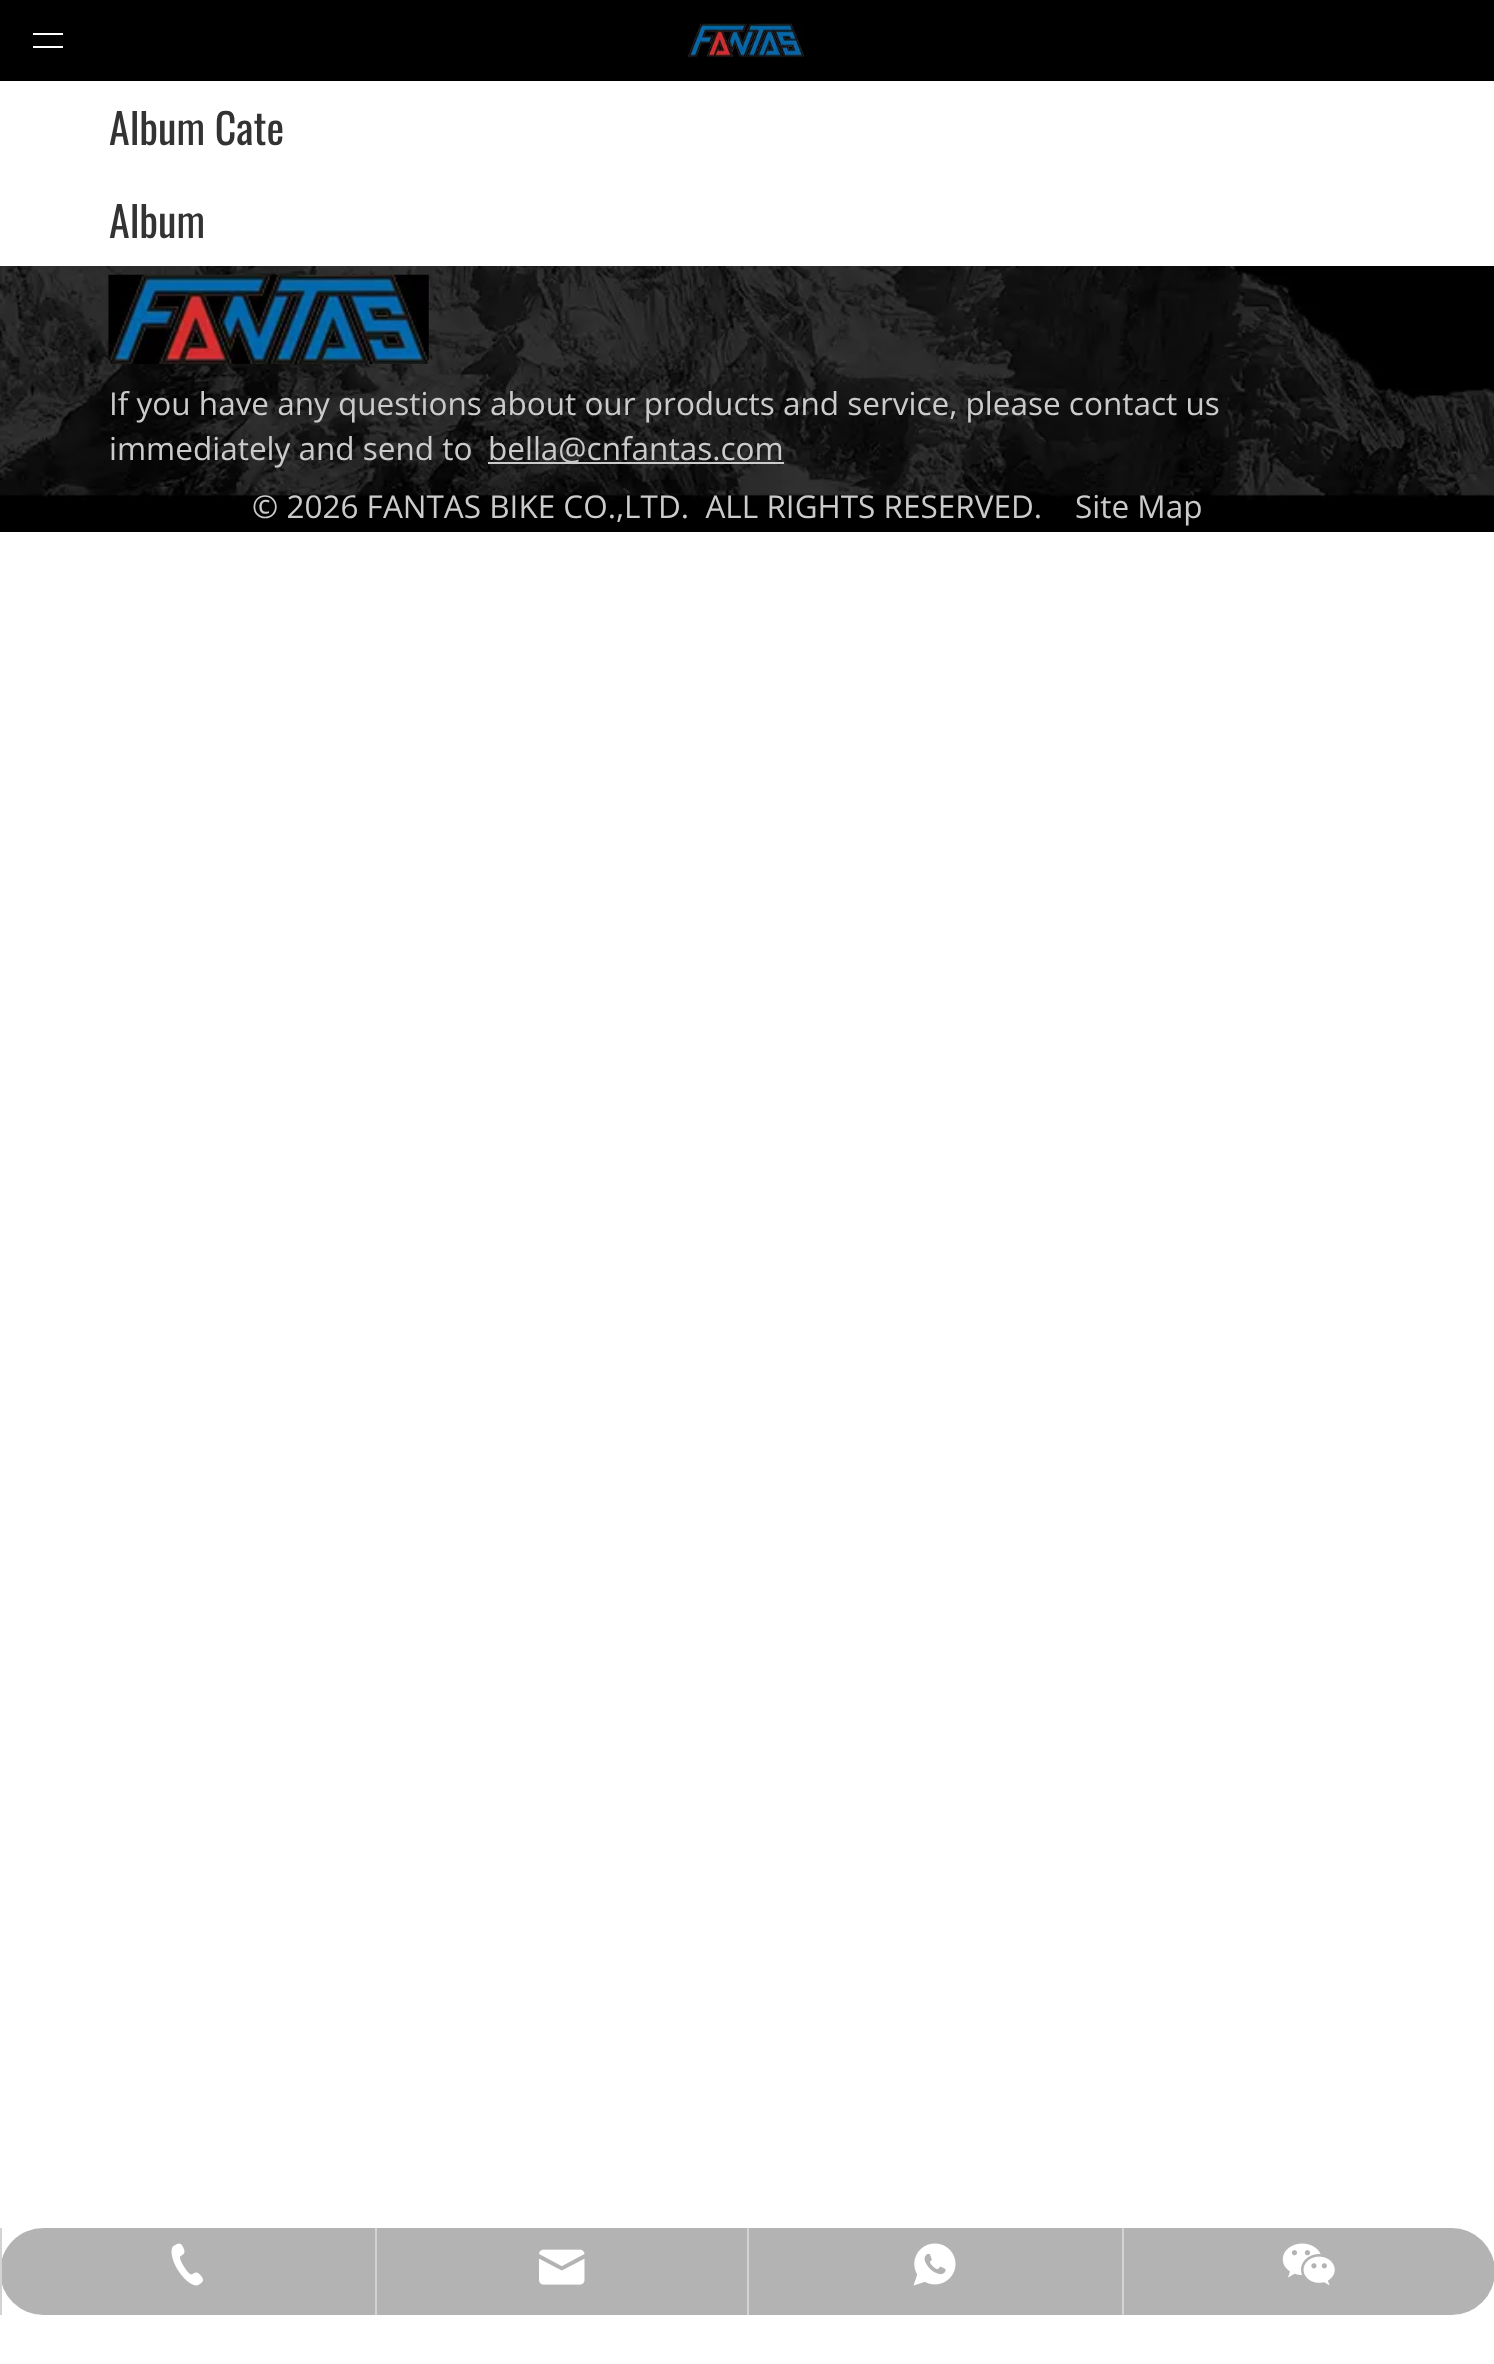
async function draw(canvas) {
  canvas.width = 1494
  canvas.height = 2364
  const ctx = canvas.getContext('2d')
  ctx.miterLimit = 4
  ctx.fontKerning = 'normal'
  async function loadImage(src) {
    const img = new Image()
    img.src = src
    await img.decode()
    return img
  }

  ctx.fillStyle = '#fff'
  ctx.fillRect(0, 0, 1494, 2364)
  ctx.fillStyle = '#000'
  ctx.fillRect(0, 0, 1494, 81)
  ctx.fillStyle = '#fff'
  ctx.fillRect(33, 33, 30, 2)
  ctx.fillRect(33, 46, 30, 2)
  ctx.drawImage(await loadImage('image0.png'), 686, 21, 118, 37)
  ctx.font = '42px Oswald'
  ctx.fillStyle = '#333'
  ctx.fillText('Album Cate', 109, 145)
  ctx.fillText('Album', 109, 238)
  ctx.fillStyle = '#000'
  ctx.fillRect(0, 500, 1494, 32)
  ctx.drawImage(await loadImage('image1.png'), 0, 266, 1494, 234)
  ctx.drawImage(await loadImage('image2.png'), 108, 274, 321, 90)
  ctx.font = '31.5px Open Sans'
  ctx.fillStyle = '#cbcbcb'
  ctx.fillText('If you have any questions about our products and service, please contact us', 109, 415)
  ctx.fillText('immediately and send to', 109, 460)
  ctx.fillRect(488, 462, 296, 2)
  ctx.fillText('bella@cnfantas.com', 488, 460)
  ctx.fillText('© 2026 FANTAS BIKE CO.,LTD.  ALL RIGHTS RESERVED.', 252, 518)
  ctx.fillText('Site Map', 1075, 518)
  ctx.fillStyle = '#b3b3b3'
  ctx.beginPath()
  ctx.roundRect(0, 2228, 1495, 87, 43.5)
  ctx.fill()
  ctx.fillStyle = '#d3d3d3'
  ctx.fillRect(0, 2228, 2, 87)
  ctx.drawImage(await loadImage('image3.png'), 171, 2243, 32, 43)
  ctx.fillRect(375, 2228, 2, 87)
  ctx.drawImage(await loadImage('image4.png'), 539, 2249, 46, 36)
  ctx.fillRect(747, 2228, 2, 87)
  ctx.drawImage(await loadImage('image5.png'), 913, 2243, 43, 43)
  ctx.fillRect(1122, 2228, 2, 87)
  ctx.drawImage(await loadImage('image6.png'), 1282, 2243, 53, 43)
}

draw(document.querySelector('canvas'))
